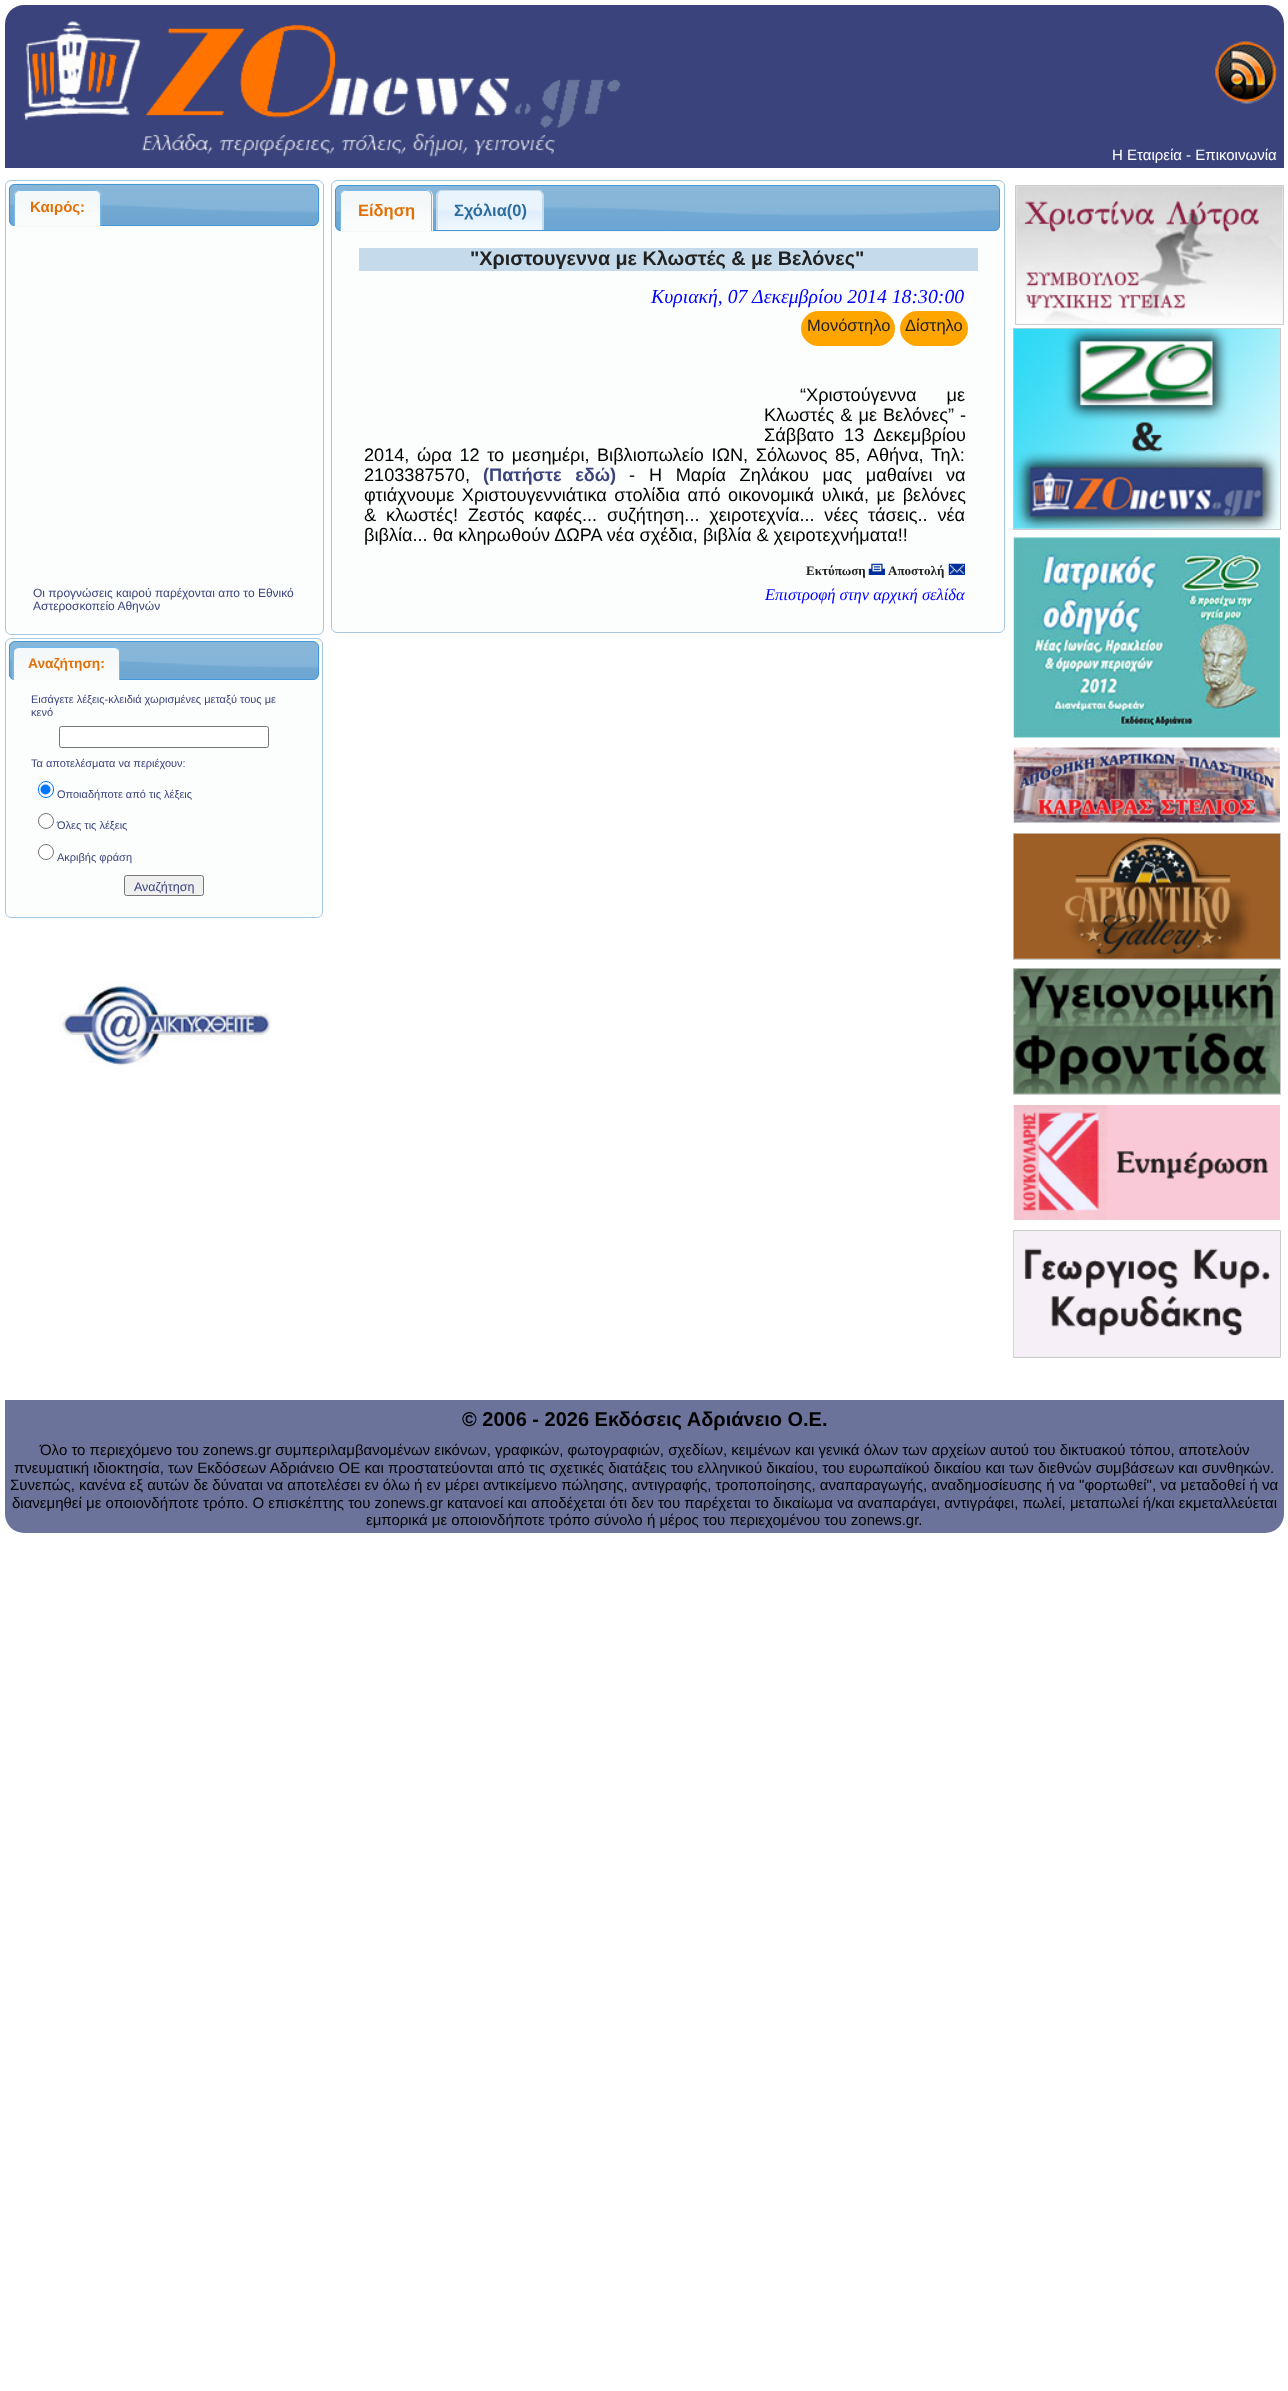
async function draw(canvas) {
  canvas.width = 1288
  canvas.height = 2391
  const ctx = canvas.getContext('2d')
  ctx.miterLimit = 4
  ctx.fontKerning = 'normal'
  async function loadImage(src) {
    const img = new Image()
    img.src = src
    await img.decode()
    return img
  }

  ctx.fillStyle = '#fff'
  ctx.fillRect(0, 0, 1288, 2391)
  ctx.fillStyle = '#3a437c'
  ctx.beginPath()
  ctx.roundRect(5, 5, 1279, 163, [19, 19, 0, 0])
  ctx.fill()
  ctx.drawImage(await loadImage('image0.png'), 23, 21, 598, 136)
  ctx.drawImage(await loadImage('image1.png'), 1215, 41, 62, 63)
  ctx.font = '15px Liberation Sans'
  ctx.fillStyle = '#fff'
  ctx.fillText('Η Εταιρεία - Επικοινωνία', 1112, 160)
  ctx.fillStyle = '#fcfdfd'
  ctx.beginPath()
  ctx.roundRect(5.5, 180.5, 318, 454, 5.5)
  ctx.fill()
  ctx.strokeStyle = '#a6c9e2'
  ctx.stroke()
  ctx.drawImage(await loadImage('image2.png'), 8, 183, 311, 44)
  ctx.beginPath()
  ctx.roundRect(9.5, 184.5, 309, 41, 5.5)
  ctx.strokeStyle = '#4297d7'
  ctx.stroke()
  ctx.drawImage(await loadImage('image3.png'), 13, 190, 89, 36)
  ctx.fillStyle = '#79b7e7'
  ctx.beginPath()
  ctx.moveTo(20, 190)
  ctx.lineTo(95, 190)
  ctx.bezierCurveTo(98, 190, 101, 193, 101, 196)
  ctx.lineTo(101, 226)
  ctx.lineTo(14, 226)
  ctx.lineTo(14, 196)
  ctx.bezierCurveTo(14, 193, 17, 190, 20, 190)
  ctx.closePath()
  ctx.moveTo(20, 191)
  ctx.lineTo(95, 191)
  ctx.bezierCurveTo(98, 191, 100, 193, 100, 196)
  ctx.lineTo(100, 226)
  ctx.lineTo(15, 226)
  ctx.lineTo(15, 196)
  ctx.bezierCurveTo(15, 193, 17, 191, 20, 191)
  ctx.closePath()
  ctx.fill('evenodd')
  ctx.font = 'bold 15px Liberation Sans'
  ctx.fillStyle = '#e17009'
  ctx.fillText('Καιρός:', 30, 212)
  ctx.font = '12px Liberation Sans'
  ctx.fillStyle = '#3a437c'
  ctx.fillText('Οι προγνώσεις καιρού παρέχονται απο το Εθνικό', 33, 597)
  ctx.fillText('Αστεροσκοπείο Αθηνών', 33, 610)
  ctx.fillStyle = '#fcfdfd'
  ctx.beginPath()
  ctx.roundRect(5.5, 638.5, 317, 279, 5.5)
  ctx.fill()
  ctx.strokeStyle = '#a6c9e2'
  ctx.stroke()
  ctx.drawImage(await loadImage('image4.png'), 8, 641, 311, 39)
  ctx.beginPath()
  ctx.roundRect(9.5, 641.5, 309, 38, 5.5)
  ctx.strokeStyle = '#4297d7'
  ctx.stroke()
  ctx.drawImage(await loadImage('image5.png'), 12, 646, 108, 34)
  ctx.fillStyle = '#79b7e7'
  ctx.beginPath()
  ctx.moveTo(19, 646)
  ctx.lineTo(114, 646)
  ctx.bezierCurveTo(117, 646, 120, 649, 120, 652)
  ctx.lineTo(120, 680)
  ctx.lineTo(12, 680)
  ctx.lineTo(12, 652)
  ctx.bezierCurveTo(12, 649, 15, 646, 19, 646)
  ctx.closePath()
  ctx.moveTo(19, 648)
  ctx.lineTo(114, 648)
  ctx.bezierCurveTo(117, 648, 119, 650, 119, 652)
  ctx.lineTo(119, 680)
  ctx.lineTo(14, 680)
  ctx.lineTo(14, 652)
  ctx.bezierCurveTo(14, 650, 16, 648, 19, 648)
  ctx.closePath()
  ctx.fill('evenodd')
  ctx.font = 'bold 13.75px Liberation Sans'
  ctx.fillStyle = '#e17009'
  ctx.fillText('Αναζήτηση:', 28, 668)
  ctx.font = '11px Liberation Sans'
  ctx.fillStyle = '#3a437c'
  ctx.fillText('Εισάγετε λέξεις-κλειδιά χωρισμένες μεταξύ τους με', 31, 703)
  ctx.fillText('κενό', 31, 716)
  ctx.fillStyle = '#fff'
  ctx.beginPath()
  ctx.roundRect(59.5, 726.5, 209, 21, 2)
  ctx.fill()
  ctx.strokeStyle = '#767676'
  ctx.stroke()
  ctx.fillStyle = '#3a437c'
  ctx.fillText('Τα αποτελέσματα να περιέχουν:', 31, 767)
  ctx.fillStyle = '#fff'
  ctx.beginPath()
  ctx.roundRect(38.5, 781.5, 15, 16, 7.5)
  ctx.fill()
  ctx.strokeStyle = '#0075ff'
  ctx.stroke()
  ctx.fillStyle = '#0075ff'
  ctx.beginPath()
  ctx.arc(45.5, 789.5, 5, 0, 2 * Math.PI)
  ctx.fill()
  ctx.fillStyle = '#3a437c'
  ctx.fillText('Οποιαδήποτε από τις λέξεις', 57, 798)
  ctx.fillStyle = '#fff'
  ctx.beginPath()
  ctx.arc(46, 821, 7.5, 0, 2 * Math.PI)
  ctx.fill()
  ctx.strokeStyle = '#767676'
  ctx.stroke()
  ctx.fillStyle = '#3a437c'
  ctx.fillText('Όλες τις λέξεις', 57, 829)
  ctx.fillStyle = '#fff'
  ctx.beginPath()
  ctx.arc(46, 852, 7.5, 0, 2 * Math.PI)
  ctx.fill()
  ctx.stroke()
  ctx.fillStyle = '#3a437c'
  ctx.fillText('Ακριβής φράση', 57, 861)
  ctx.fillStyle = '#efefef'
  ctx.beginPath()
  ctx.roundRect(124.5, 875.5, 79, 20, 2)
  ctx.fill()
  ctx.stroke()
  ctx.font = '12.5px Liberation Sans'
  ctx.fillStyle = '#3a437c'
  ctx.fillText('Αναζήτηση', 134, 891)
  ctx.drawImage(await loadImage('image6.png'), 59, 982, 212, 85)
  ctx.fillStyle = '#fcfdfd'
  ctx.beginPath()
  ctx.roundRect(331.5, 180.5, 673, 452, 5.5)
  ctx.fill()
  ctx.strokeStyle = '#a6c9e2'
  ctx.stroke()
  ctx.drawImage(await loadImage('image7.png'), 335, 185, 665, 47)
  ctx.beginPath()
  ctx.roundRect(335.5, 185.5, 664, 45, 5.5)
  ctx.strokeStyle = '#4297d7'
  ctx.stroke()
  ctx.fillStyle = '#f5f8f9'
  ctx.beginPath()
  ctx.roundRect(340, 190, 93, 41, [6, 6, 0, 0])
  ctx.fill()
  ctx.drawImage(await loadImage('image8.png'), 340, 190, 92, 41)
  ctx.fillStyle = '#79b7e7'
  ctx.beginPath()
  ctx.moveTo(346, 190)
  ctx.lineTo(426, 190)
  ctx.bezierCurveTo(430, 190, 432, 193, 432, 196)
  ctx.lineTo(432, 231)
  ctx.lineTo(340, 231)
  ctx.lineTo(340, 196)
  ctx.bezierCurveTo(340, 193, 343, 190, 346, 190)
  ctx.closePath()
  ctx.moveTo(346, 191)
  ctx.lineTo(426, 191)
  ctx.bezierCurveTo(429, 191, 431, 193, 431, 196)
  ctx.lineTo(431, 231)
  ctx.lineTo(341, 231)
  ctx.lineTo(341, 196)
  ctx.bezierCurveTo(341, 193, 343, 191, 346, 191)
  ctx.closePath()
  ctx.fill('evenodd')
  ctx.font = 'bold 16.5px Liberation Sans'
  ctx.fillStyle = '#e17009'
  ctx.fillText('Είδηση', 358, 216)
  ctx.drawImage(await loadImage('image9.png'), 436, 190, 108, 40)
  ctx.fillStyle = '#c5dbec'
  ctx.beginPath()
  ctx.moveTo(442, 190)
  ctx.lineTo(538, 190)
  ctx.bezierCurveTo(541, 190, 544, 193, 544, 196)
  ctx.lineTo(544, 230)
  ctx.lineTo(436, 230)
  ctx.lineTo(436, 196)
  ctx.bezierCurveTo(436, 193, 439, 190, 442, 190)
  ctx.closePath()
  ctx.moveTo(442, 191)
  ctx.lineTo(538, 191)
  ctx.bezierCurveTo(540, 191, 542, 193, 542, 196)
  ctx.lineTo(542, 230)
  ctx.lineTo(438, 230)
  ctx.lineTo(438, 196)
  ctx.bezierCurveTo(438, 193, 440, 191, 442, 191)
  ctx.closePath()
  ctx.fill('evenodd')
  ctx.fillStyle = '#2e6e9e'
  ctx.fillText('Σχόλια(0)', 454, 216)
  ctx.fillStyle = '#c5dbec'
  ctx.fillRect(359, 248, 619, 23)
  ctx.font = 'bold 19.75px Liberation Sans'
  ctx.fillStyle = '#222'
  ctx.fillText('"Χριστουγεννα με Κλωστές & με Βελόνες"', 470, 265)
  ctx.font = 'italic 19.75px Liberation Serif'
  ctx.fillStyle = '#00f'
  ctx.fillText('Κυριακή, 07 Δεκεμβρίου 2014 18:30:00', 651, 303)
  ctx.fillStyle = '#ffa500'
  ctx.beginPath()
  ctx.roundRect(801, 311, 94, 35, 17.5)
  ctx.fill()
  ctx.font = '16.5px Liberation Sans'
  ctx.fillStyle = '#222'
  ctx.fillText('Μονόστηλο', 807, 331)
  ctx.fillStyle = '#ffa500'
  ctx.beginPath()
  ctx.roundRect(900, 311, 68, 35, 17.5)
  ctx.fill()
  ctx.fillStyle = '#222'
  ctx.fillText('Δίστηλο', 905, 331)
  ctx.wordSpacing = '25px'
  ctx.font = '18.15px Liberation Sans'
  ctx.fillStyle = '#000'
  ctx.fillText('“Χριστούγεννα με', 800, 401)
  ctx.wordSpacing = '1px'
  ctx.fillText('Κλωστές & με Βελόνες” -', 764, 421)
  ctx.wordSpacing = '5px'
  ctx.fillText('Σάββατο 13 Δεκεμβρίου', 764, 441)
  ctx.wordSpacing = '2.5px'
  ctx.fillText('2014, ώρα 12 το μεσημέρι, Βιβλιοπωλείο ΙΩΝ, Σόλωνος 85, Αθήνα, Τηλ:', 364, 461)
  ctx.wordSpacing = '0px'
  ctx.fillText('2103387570,', 364, 481)
  ctx.wordSpacing = '8.5px'
  ctx.font = 'bold 18.15px Liberation Sans'
  ctx.fillStyle = '#3a437c'
  ctx.fillText('(Πατήστε εδώ)', 483, 481)
  ctx.wordSpacing = '0px'
  ctx.font = '18.15px Liberation Sans'
  ctx.fillStyle = '#000'
  ctx.fillText('-', 629, 481)
  ctx.wordSpacing = '8.5px'
  ctx.fillText('Η Μαρία Ζηλάκου μας μαθαίνει να', 649, 481)
  ctx.wordSpacing = '2.5px'
  ctx.fillText('φτιάχνουμε Χριστουγεννιάτικα στολίδια από οικονομικά υλικά, με βελόνες', 364, 501)
  ctx.wordSpacing = '4.75px'
  ctx.fillText('& κλωστές! Ζεστός καφές... συζήτηση... χειροτεχνία... νέες τάσεις.. νέα', 364, 521)
  ctx.wordSpacing = '0px'
  ctx.fillText('βιβλία... θα κληρωθούν ΔΩΡΑ νέα σχέδια, βιβλία & χειροτεχνήματα!!', 364, 541)
  ctx.font = 'bold 13px Liberation Serif'
  ctx.fillStyle = '#222'
  ctx.fillText('Εκτύπωση', 806, 575)
  ctx.drawImage(await loadImage('image10.png'), 868, 563, 17, 12)
  ctx.fillText('Αποστολή', 888, 575)
  ctx.drawImage(await loadImage('image11.png'), 948, 563, 17, 12)
  ctx.font = 'italic 16.5px Liberation Serif'
  ctx.fillStyle = '#00f'
  ctx.fillText('Επιστροφή στην αρχική σελίδα', 765, 600)
  ctx.fillStyle = '#eee'
  ctx.beginPath()
  ctx.rect(1015.5, 185.5, 268, 139)
  ctx.fill()
  ctx.strokeStyle = '#ccc'
  ctx.stroke()
  ctx.drawImage(await loadImage('image12.png'), 1016, 186, 267, 138)
  ctx.strokeRect(1013.5, 328.5, 267, 201)
  ctx.drawImage(await loadImage('image13.png'), 1013, 328, 267, 201)
  ctx.drawImage(await loadImage('image14.png'), 1013, 537, 267, 201)
  ctx.drawImage(await loadImage('image15.png'), 1013, 747, 267, 76)
  ctx.strokeRect(1013.5, 833.5, 267, 126)
  ctx.drawImage(await loadImage('image16.png'), 1013, 833, 267, 126)
  ctx.strokeRect(1013.5, 968.5, 267, 126)
  ctx.drawImage(await loadImage('image17.png'), 1013, 968, 267, 126)
  ctx.drawImage(await loadImage('image18.png'), 1013, 1105, 267, 115)
  ctx.beginPath()
  ctx.rect(1013.5, 1230.5, 267, 127)
  ctx.fill()
  ctx.stroke()
  ctx.drawImage(await loadImage('image19.png'), 1013, 1231, 267, 125)
  ctx.fillStyle = '#6b739b'
  ctx.beginPath()
  ctx.roundRect(5, 1400, 1279, 133, [0, 0, 19, 19])
  ctx.fill()
  ctx.font = 'bold 20px Liberation Sans'
  ctx.fillStyle = '#000'
  ctx.fillText('© 2006 - 2026 Εκδόσεις Αδριάνειο Ο.Ε.', 462, 1426)
  ctx.font = '15px Liberation Sans'
  ctx.fillText('Όλο το περιεχόμενο του zonews.gr συμπεριλαμβανομένων εικόνων, γραφικών, φωτογραφιών, σχεδίων, κειμένων και γενικά όλων των αρχείων αυτού του δικτυακού τόπου, αποτελούν', 40, 1455)
  ctx.fillText('πνευματική ιδιοκτησία, των Εκδόσεων Αδριάνειο ΟΕ και προστατεύονται από τις σχετικές διατάξεις του ελληνικού δικαίου, του ευρωπαϊκού δικαίου και των διεθνών συμβάσεων και συνθηκών.', 14, 1473)
  ctx.fillText('Συνεπώς, κανένα εξ αυτών δε δύναται να αποτελέσει εν όλω ή εν μέρει αντικείμενο πώλησης, αντιγραφής, τροποποίησης, αναπαραγωγής, αναδημοσίευσης ή να "φορτωθεί", να μεταδοθεί ή να', 10, 1490)
  ctx.fillText('διανεμηθεί με οποιονδήποτε τρόπο. Ο επισκέπτης του zonews.gr κατανοεί και αποδέχεται ότι δεν του παρέχεται το δικαίωμα να αναπαράγει, αντιγράφει, πωλεί, μεταπωλεί ή/και εκμεταλλεύεται', 12, 1508)
  ctx.fillText('εμπορικά με οποιονδήποτε τρόπο σύνολο ή μέρος του περιεχομένου του zonews.gr.', 366, 1525)
}

draw(document.querySelector('canvas'))
